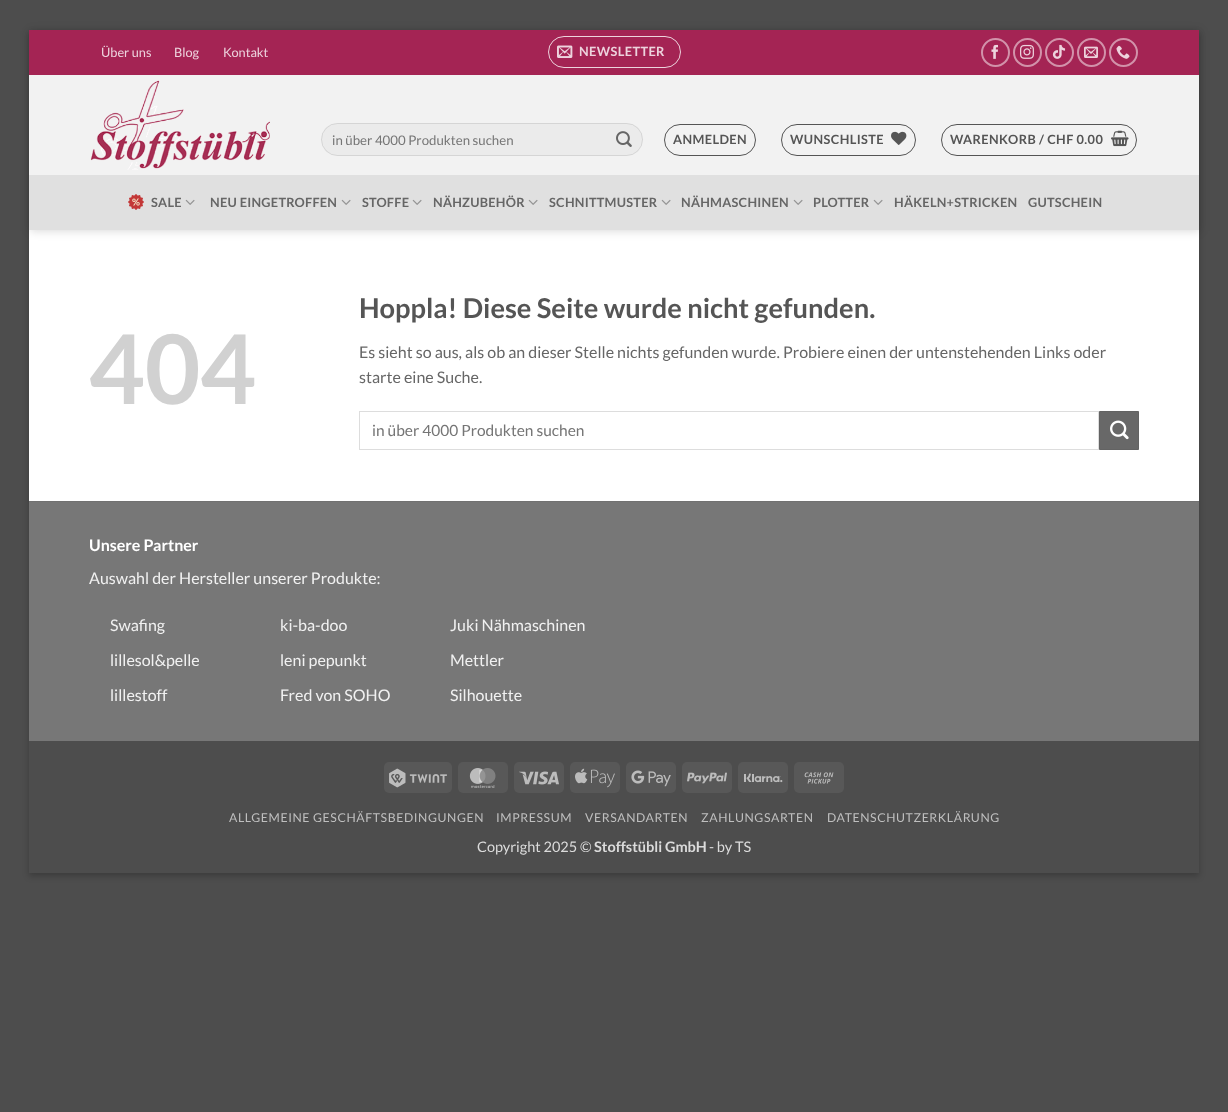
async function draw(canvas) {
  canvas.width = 1228
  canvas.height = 1112
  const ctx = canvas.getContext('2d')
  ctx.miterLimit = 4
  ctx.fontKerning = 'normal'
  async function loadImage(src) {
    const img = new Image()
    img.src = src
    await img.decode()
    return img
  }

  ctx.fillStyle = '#4d4d4d'
  ctx.fillRect(0, 0, 1228, 1112)
  ctx.fillStyle = '#0000003b'
  ctx.filter = 'blur(3px)'
  ctx.beginPath()
  ctx.rect(29, 33, 1170, 843)
  ctx.fill()
  ctx.filter = 'none'
  ctx.fillStyle = '#fff'
  ctx.fillRect(29, 230, 1170, 271)
  ctx.fillStyle = '#00000026'
  ctx.filter = 'blur(5px)'
  ctx.beginPath()
  ctx.rect(30, 31, 1170, 200)
  ctx.fill()
  ctx.filter = 'none'
  ctx.fillStyle = '#a42454'
  ctx.fillRect(29, 30, 1170, 45)
  ctx.font = '12.75px Lato'
  ctx.fillStyle = '#edd3dd'
  ctx.fillText('Über uns', 101, 57)
  ctx.fillText('Blog', 174, 57)
  ctx.fillText('Kontakt', 223, 57)
  ctx.beginPath()
  ctx.roundRect(548.5, 36.5, 132, 31, 15.5)
  ctx.strokeStyle = '#edd3dd'
  ctx.stroke()
  ctx.drawImage(await loadImage('image0.png'), 557, 45, 16, 13)
  ctx.letterSpacing = '0.4px'
  ctx.font = 'bold 12.75px Lato'
  ctx.fillText('NEWSLETTER', 579, 56)
  ctx.beginPath()
  ctx.arc(995.5, 52.5, 13.5, 0, 2 * Math.PI)
  ctx.strokeStyle = '#d292aa'
  ctx.lineWidth = 2
  ctx.stroke()
  ctx.drawImage(await loadImage('image1.png'), 991, 44, 7, 15)
  ctx.beginPath()
  ctx.arc(1027.5, 52.5, 13.5, 0, 2 * Math.PI)
  ctx.stroke()
  ctx.drawImage(await loadImage('image2.png'), 1020, 44, 14, 15)
  ctx.beginPath()
  ctx.arc(1059.5, 52.5, 13.5, 0, 2 * Math.PI)
  ctx.stroke()
  ctx.drawImage(await loadImage('image3.png'), 1052, 44, 14, 15)
  ctx.beginPath()
  ctx.arc(1091.5, 52.5, 13.5, 0, 2 * Math.PI)
  ctx.stroke()
  ctx.drawImage(await loadImage('image4.png'), 1084, 46, 14, 12)
  ctx.beginPath()
  ctx.arc(1123.5, 52.5, 13.5, 0, 2 * Math.PI)
  ctx.stroke()
  ctx.drawImage(await loadImage('image5.png'), 1116, 45, 14, 14)
  ctx.fillStyle = '#f2f2f2'
  ctx.fillRect(29, 75, 1170, 100)
  ctx.drawImage(await loadImage('image6.png'), 90, 80, 180, 90)
  ctx.fillStyle = '#ebebeb'
  ctx.beginPath()
  ctx.roundRect(321, 123, 322, 33, 16.5)
  ctx.fill()
  ctx.beginPath()
  ctx.roundRect(321.5, 123.5, 321, 32, 16)
  ctx.strokeStyle = '#00000017'
  ctx.lineWidth = 1
  ctx.stroke()
  ctx.letterSpacing = '0px'
  ctx.font = '13.25px Lato'
  ctx.fillStyle = '#757575'
  ctx.fillText('in über 4000 Produkten suchen', 332, 145)
  ctx.drawImage(await loadImage('image7.png'), 616, 131, 16, 16)
  ctx.beginPath()
  ctx.roundRect(664.5, 124.5, 91, 31, 15.5)
  ctx.strokeStyle = '#555'
  ctx.stroke()
  ctx.letterSpacing = '0.4px'
  ctx.font = 'bold 12.75px Lato'
  ctx.fillStyle = '#555'
  ctx.fillText('ANMELDEN', 673, 144)
  ctx.beginPath()
  ctx.roundRect(781.5, 124.5, 134, 31, 15.5)
  ctx.stroke()
  ctx.fillText('WUNSCHLISTE', 790, 144)
  ctx.drawImage(await loadImage('image8.png'), 891, 131, 16, 14)
  ctx.beginPath()
  ctx.roundRect(941.5, 124.5, 195, 31, 15.5)
  ctx.stroke()
  ctx.fillText('WARENKORB / CHF 0.00', 950, 144)
  ctx.drawImage(await loadImage('image9.png'), 1111, 130, 18, 17)
  ctx.fillStyle = '#e0e0e0'
  ctx.fillRect(29, 175, 1170, 55)
  ctx.drawImage(await loadImage('image10.png'), 128, 194, 16, 16)
  ctx.letterSpacing = '0.25px'
  ctx.fillStyle = '#666'
  ctx.fillText('SALE', 151, 207)
  ctx.drawImage(await loadImage('image11.png'), 185, 199, 10, 6)
  ctx.fillText('NEU EINGETROFFEN', 210, 207)
  ctx.drawImage(await loadImage('image11.png'), 341, 199, 10, 6)
  ctx.fillText('STOFFE', 362, 207)
  ctx.drawImage(await loadImage('image11.png'), 412, 199, 10, 6)
  ctx.fillText('NÄHZUBEHÖR', 433, 207)
  ctx.drawImage(await loadImage('image11.png'), 528, 199, 10, 6)
  ctx.fillText('SCHNITTMUSTER', 549, 207)
  ctx.drawImage(await loadImage('image11.png'), 661, 199, 10, 6)
  ctx.fillText('NÄHMASCHINEN', 681, 207)
  ctx.drawImage(await loadImage('image11.png'), 793, 199, 10, 6)
  ctx.fillText('PLOTTER', 813, 207)
  ctx.drawImage(await loadImage('image11.png'), 873, 199, 10, 6)
  ctx.fillText('HÄKELN+STRICKEN', 894, 207)
  ctx.fillText('GUTSCHEIN', 1028, 207)
  ctx.letterSpacing = '0px'
  ctx.font = 'bold 96px Lato'
  ctx.fillStyle = '#d1d1d1'
  ctx.fillText('404', 89, 404)
  ctx.font = 'bold 27.25px Lato'
  ctx.fillStyle = '#555'
  ctx.fillText('Hoppla! Diese Seite wurde nicht gefunden.', 359, 318)
  ctx.font = '16px Lato'
  ctx.fillStyle = '#666'
  ctx.fillText('Es sieht so aus, als ob an dieser Stelle nichts gefunden wurde. Probiere einen der untenstehenden Links oder', 359, 358)
  ctx.fillText('starte eine Suche.', 359, 383)
  ctx.strokeStyle = '#ddd'
  ctx.strokeRect(359.5, 411.5, 739, 38)
  ctx.font = '15.5px Lato'
  ctx.fillStyle = '#757575'
  ctx.fillText('in über 4000 Produkten suchen', 372, 436)
  ctx.fillStyle = '#686868'
  ctx.beginPath()
  ctx.rect(1099.5, 411.5, 39, 38)
  ctx.fill()
  ctx.strokeStyle = '#636363'
  ctx.stroke()
  ctx.drawImage(await loadImage('image12.png'), 1110, 420, 19, 20)
  ctx.fillStyle = '#777'
  ctx.fillRect(29, 502, 1170, 239)
  ctx.fillStyle = '#717171'
  ctx.fillRect(29, 501, 1170, 1)
  ctx.font = 'bold 16px Lato'
  ctx.fillStyle = '#fff'
  ctx.fillText('Unsere Partner', 89, 551)
  ctx.font = '16px Lato'
  ctx.fillStyle = '#f1f1f1'
  ctx.fillText('Auswahl der Hersteller unserer Produkte:', 89, 584)
  ctx.fillText('Swafing', 110, 631)
  ctx.fillText('lillesol&pelle', 110, 666)
  ctx.fillText('lillestoff', 110, 701)
  ctx.fillText('ki-ba-doo', 280, 631)
  ctx.fillText('leni pepunkt', 280, 666)
  ctx.fillText('Fred von SOHO', 280, 701)
  ctx.fillText('Juki Nähmaschinen', 450, 631)
  ctx.fillText('Mettler', 450, 666)
  ctx.fillText('Silhouette', 450, 701)
  ctx.fillStyle = '#4d4d4d'
  ctx.fillRect(29, 741, 1170, 132)
  ctx.fillStyle = '#585858'
  ctx.beginPath()
  ctx.roundRect(384, 762, 68, 31, 5)
  ctx.fill()
  ctx.drawImage(await loadImage('image13.png'), 389, 768, 58, 20)
  ctx.beginPath()
  ctx.roundRect(458, 762, 50, 31, 5)
  ctx.fill()
  ctx.drawImage(await loadImage('image14.png'), 469, 768, 27, 20)
  ctx.beginPath()
  ctx.roundRect(514, 762, 50, 31, 5)
  ctx.fill()
  ctx.drawImage(await loadImage('image15.png'), 519, 771, 40, 14)
  ctx.beginPath()
  ctx.roundRect(570, 762, 50, 31, 5)
  ctx.fill()
  ctx.drawImage(await loadImage('image16.png'), 575, 768, 40, 20)
  ctx.beginPath()
  ctx.roundRect(626, 762, 50, 31, 5)
  ctx.fill()
  ctx.drawImage(await loadImage('image17.png'), 631, 770, 40, 17)
  ctx.beginPath()
  ctx.roundRect(682, 762, 50, 31, 5)
  ctx.fill()
  ctx.drawImage(await loadImage('image18.png'), 687, 772, 40, 12)
  ctx.beginPath()
  ctx.roundRect(738, 762, 50, 31, 5)
  ctx.fill()
  ctx.drawImage(await loadImage('image19.png'), 744, 773, 39, 10)
  ctx.beginPath()
  ctx.roundRect(794, 762, 50, 31, 5)
  ctx.fill()
  ctx.drawImage(await loadImage('image20.png'), 804, 772, 30, 12)
  ctx.letterSpacing = '0.6px'
  ctx.font = '12.25px Lato'
  ctx.fillStyle = '#bfbfbf'
  ctx.fillText('ALLGEMEINE GESCHÄFTSBEDINGUNGEN', 229, 822)
  ctx.fillText('IMPRESSUM', 496, 822)
  ctx.fillText('VERSANDARTEN', 585, 822)
  ctx.fillText('ZAHLUNGSARTEN', 701, 822)
  ctx.fillText('DATENSCHUTZERKLÄRUNG', 827, 822)
  ctx.letterSpacing = '0px'
  ctx.font = '14.5px Lato'
  ctx.fillStyle = '#dbdbdb'
  ctx.fillText('Copyright 2025 ©', 477, 852)
  ctx.font = 'bold 14.5px Lato'
  ctx.fillText('Stoffstübli GmbH', 594, 852)
  ctx.font = '14.5px Lato'
  ctx.fillText('- by TS', 709, 852)
}

draw(document.querySelector('canvas'))
